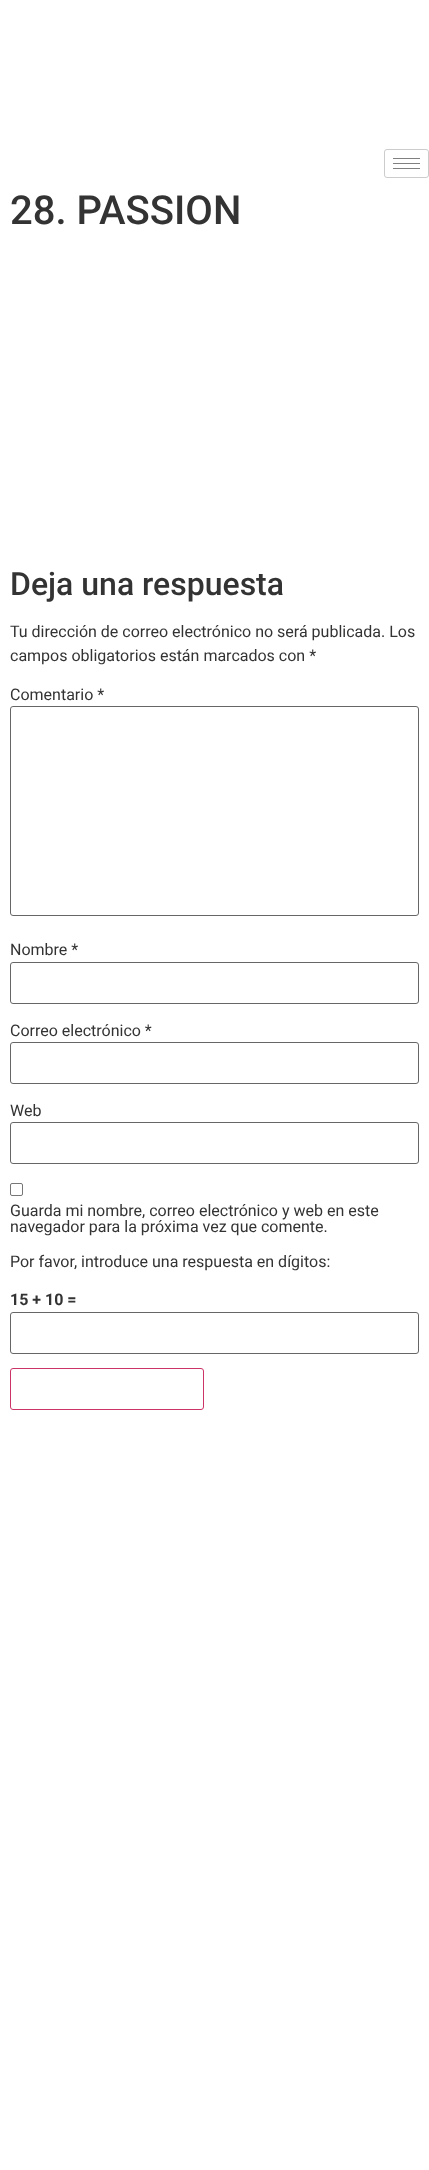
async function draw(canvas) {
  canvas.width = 429
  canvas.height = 2170
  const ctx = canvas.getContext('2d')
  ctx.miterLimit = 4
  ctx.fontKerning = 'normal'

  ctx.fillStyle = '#fff'
  ctx.fillRect(0, 0, 429, 2170)
  ctx.beginPath()
  ctx.roundRect(384.5, 149.5, 44, 28, 2.5)
  ctx.strokeStyle = '#ccc'
  ctx.stroke()
  ctx.fillStyle = '#808080'
  ctx.fillRect(393, 158, 27, 1)
  ctx.fillRect(393, 163, 27, 1)
  ctx.fillRect(393, 168, 27, 1)
  ctx.font = '500 40px Roboto'
  ctx.fillStyle = '#333'
  ctx.fillText('28. PASSION', 10, 224)
  ctx.font = '500 32px Roboto'
  ctx.fillText('Deja una respuesta', 10, 595)
  ctx.font = '16px Roboto'
  ctx.fillText('Tu dirección de correo electrónico no será publicada. Los', 10, 637)
  ctx.fillText('campos obligatorios están marcados con *', 10, 661)
  ctx.fillText('Comentario *', 10, 700)
  ctx.beginPath()
  ctx.roundRect(10.5, 706.5, 408, 209, 2.5)
  ctx.strokeStyle = '#666'
  ctx.stroke()
  ctx.fillText('Nombre *', 10, 955)
  ctx.beginPath()
  ctx.roundRect(10.5, 962.5, 408, 41, 2.5)
  ctx.stroke()
  ctx.fillText('Correo electrónico *', 10, 1036)
  ctx.beginPath()
  ctx.roundRect(10.5, 1042.5, 408, 41, 2.5)
  ctx.stroke()
  ctx.fillText('Web', 10, 1116)
  ctx.beginPath()
  ctx.roundRect(10.5, 1122.5, 408, 41, 2.5)
  ctx.stroke()
  ctx.beginPath()
  ctx.roundRect(10.5, 1183.5, 12, 12, 1.5)
  ctx.strokeStyle = '#767676'
  ctx.stroke()
  ctx.fillText('Guarda mi nombre, correo electrónico y web en este', 10, 1216)
  ctx.fillText('navegador para la próxima vez que comente.', 10, 1232)
  ctx.fillText('Por favor, introduce una respuesta en dígitos:', 10, 1267)
  ctx.font = 'bold 16px Roboto'
  ctx.fillText('15 + 10 =', 10, 1305)
  ctx.beginPath()
  ctx.roundRect(10.5, 1312.5, 408, 41, 2.5)
  ctx.strokeStyle = '#666'
  ctx.stroke()
  ctx.beginPath()
  ctx.roundRect(10.5, 1368.5, 193, 41, 2.5)
  ctx.strokeStyle = '#c36'
  ctx.stroke()
}

draw(document.querySelector('canvas'))
